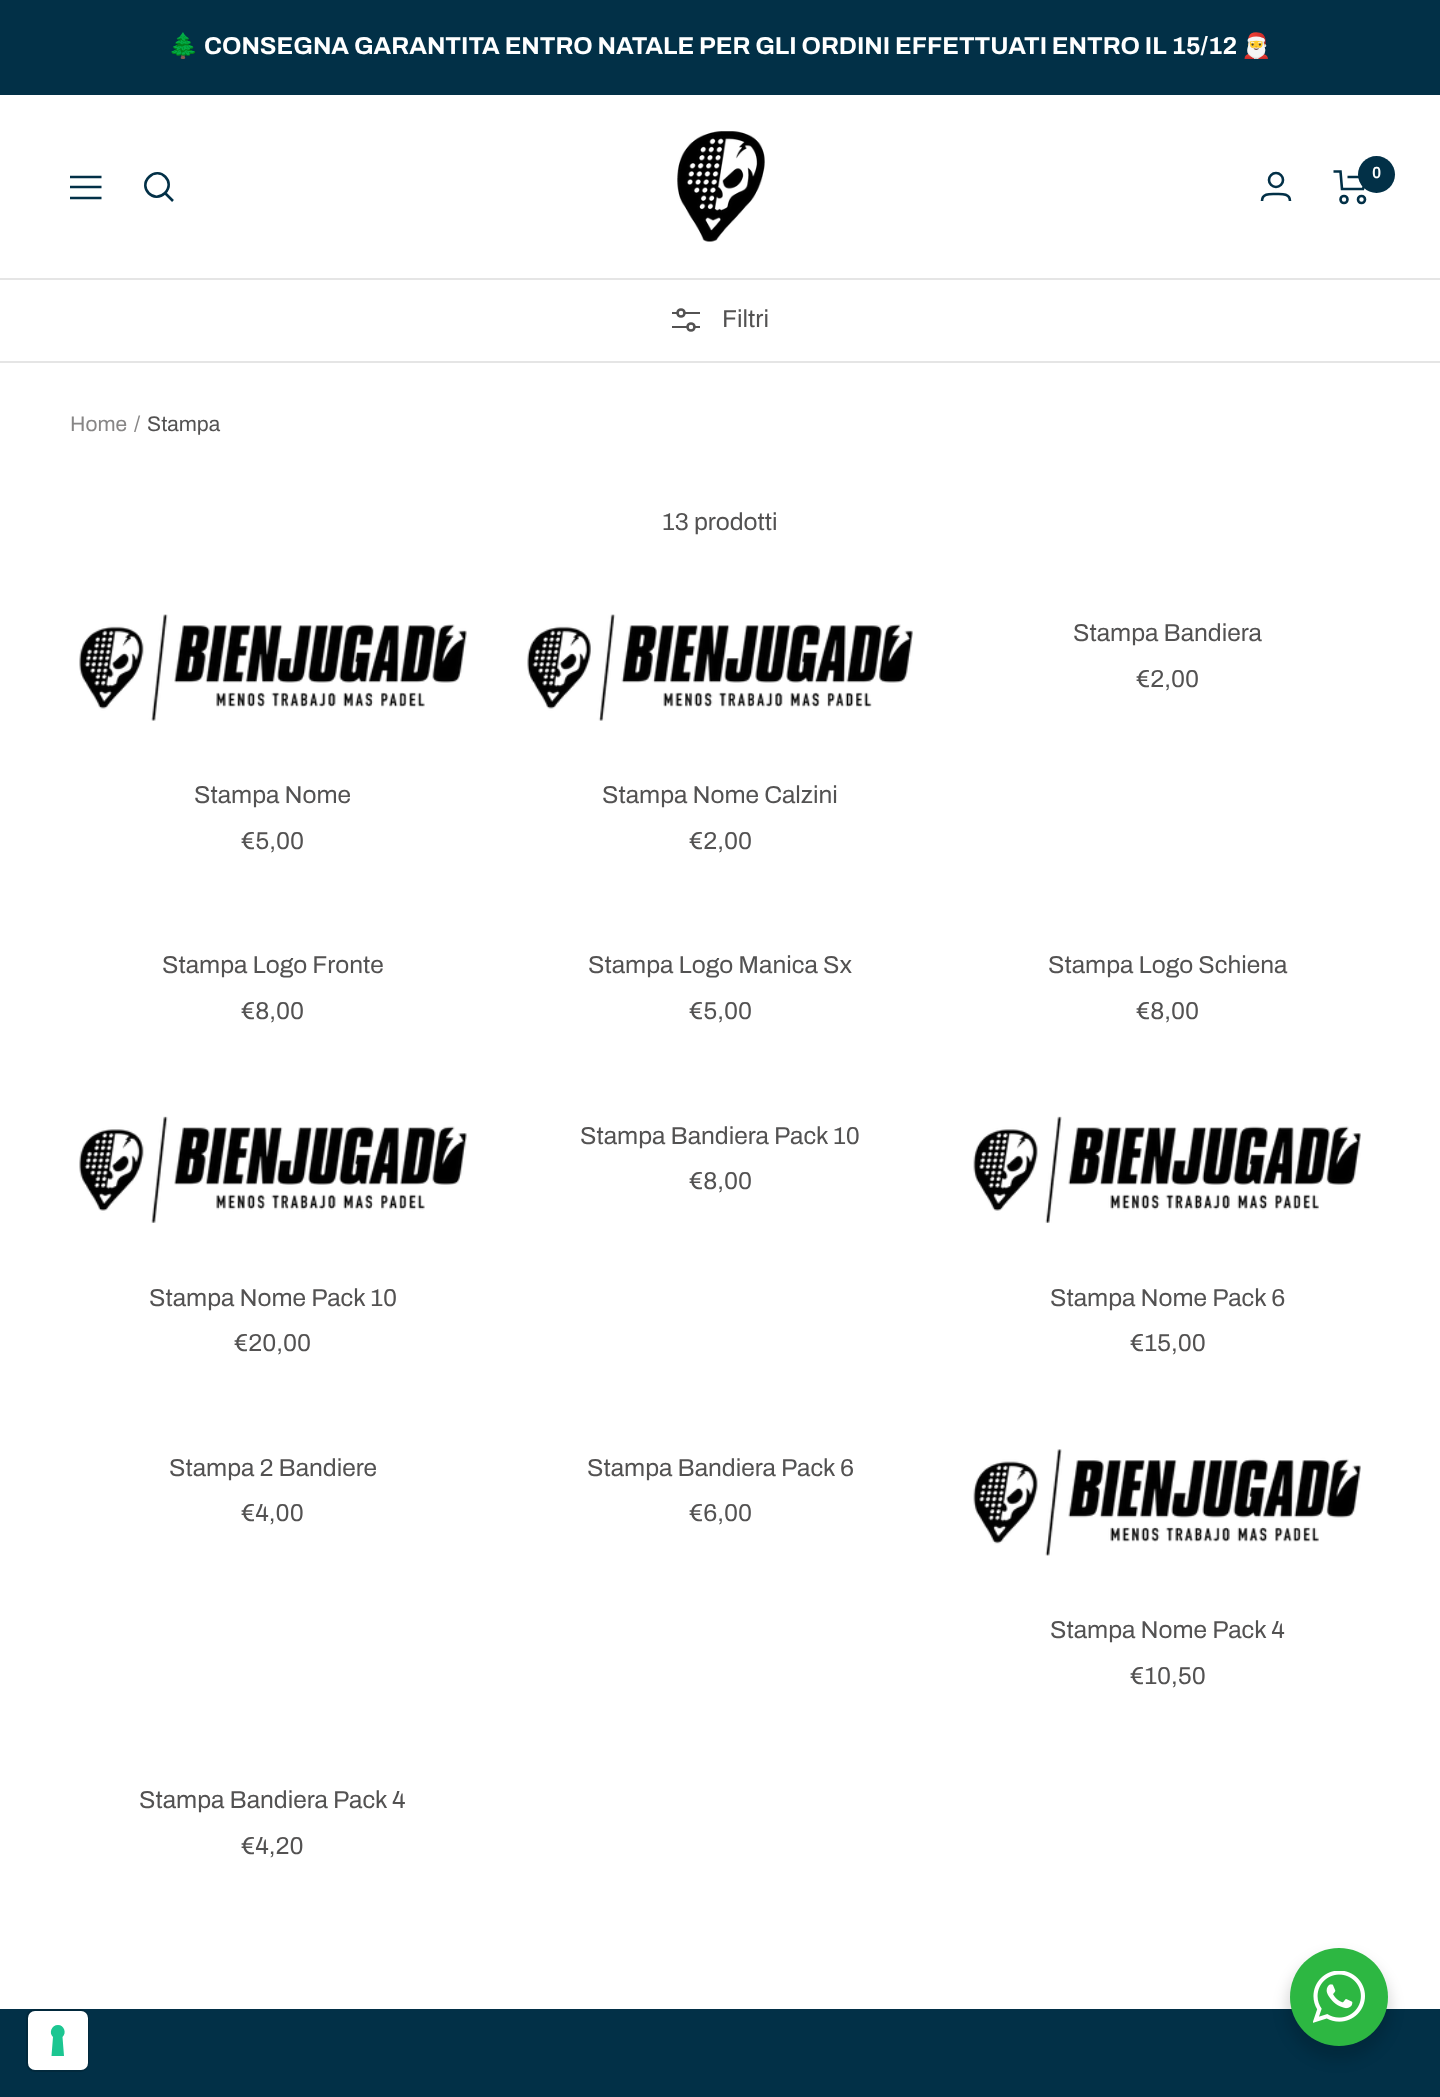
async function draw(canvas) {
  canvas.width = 1440
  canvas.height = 2097
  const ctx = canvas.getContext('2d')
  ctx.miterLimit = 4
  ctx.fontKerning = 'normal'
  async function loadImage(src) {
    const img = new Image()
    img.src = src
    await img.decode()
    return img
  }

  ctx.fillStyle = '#fff'
  ctx.fillRect(0, 0, 1440, 2097)
  ctx.fillStyle = '#023047'
  ctx.fillRect(0, 0, 1440, 95)
  ctx.font = 'bold 24.5px Noto Color Emoji'
  ctx.fillStyle = '#fff'
  ctx.fillText('🌲', 168, 54)
  ctx.font = 'bold 24.5px Archivo'
  ctx.fillText('CONSEGNA GARANTITA ENTRO NATALE PER GLI ORDINI EFFETTUATI ENTRO IL 15/12', 204, 54)
  ctx.font = 'bold 24.5px Noto Color Emoji'
  ctx.fillText('🎅', 1241, 54)
  ctx.beginPath()
  ctx.moveTo(70, 177)
  ctx.lineTo(101.5, 177)
  ctx.moveTo(70, 198)
  ctx.lineTo(101.5, 198)
  ctx.closePath()
  ctx.moveTo(70, 187)
  ctx.lineTo(101.5, 187)
  ctx.closePath()
  ctx.strokeStyle = '#023047'
  ctx.lineWidth = 2.6
  ctx.stroke()
  ctx.beginPath()
  ctx.moveTo(165, 193)
  ctx.bezierCurveTo(176, 182, 160, 166, 149, 177)
  ctx.bezierCurveTo(138, 188, 154, 204, 165, 193)
  ctx.closePath()
  ctx.moveTo(165, 193)
  ctx.lineTo(173, 201)
  ctx.stroke()
  ctx.drawImage(await loadImage('image0.png'), 677, 131, 88, 111)
  ctx.beginPath()
  ctx.arc(1276, 180, 7, 0, 2 * Math.PI)
  ctx.stroke()
  ctx.beginPath()
  ctx.moveTo(1262, 201)
  ctx.bezierCurveTo(1262, 193, 1270.5, 194, 1276, 194)
  ctx.bezierCurveTo(1281, 194, 1290, 193, 1290, 201)
  ctx.stroke()
  ctx.beginPath()
  ctx.moveTo(1333.5, 171.5)
  ctx.lineTo(1340.5, 171.5)
  ctx.lineTo(1342, 189)
  ctx.lineTo(1363, 189)
  ctx.lineTo(1367, 177)
  ctx.lineTo(1347.5, 177)
  ctx.stroke()
  ctx.beginPath()
  ctx.arc(1344, 199.5, 3.5, 0, 2 * Math.PI)
  ctx.stroke()
  ctx.beginPath()
  ctx.arc(1361.5, 199.5, 3.5, 0, 2 * Math.PI)
  ctx.stroke()
  ctx.fillStyle = '#023047'
  ctx.beginPath()
  ctx.arc(1376.5, 174.5, 18.5, 0, 2 * Math.PI)
  ctx.fill()
  ctx.font = '600 16px Archivo'
  ctx.fillStyle = '#fff'
  ctx.fillText('0', 1372, 178)
  ctx.fillStyle = '#e5e5e5'
  ctx.fillRect(0, 278, 1440, 2)
  ctx.fillRect(0, 361, 1440, 2)
  ctx.beginPath()
  ctx.moveTo(672, 313)
  ctx.lineTo(700, 313)
  ctx.moveTo(672, 327)
  ctx.lineTo(700, 327)
  ctx.strokeStyle = '#535252'
  ctx.lineWidth = 1.8
  ctx.stroke()
  ctx.fillStyle = '#fff'
  ctx.beginPath()
  ctx.arc(681, 313, 3.5, 0, 2 * Math.PI)
  ctx.fill()
  ctx.lineWidth = 2.6
  ctx.stroke()
  ctx.beginPath()
  ctx.arc(691, 327, 3.5, 0, 2 * Math.PI)
  ctx.fill()
  ctx.stroke()
  ctx.font = '24.5px Archivo'
  ctx.fillStyle = '#535252'
  ctx.fillText('Filtri', 722, 327)
  ctx.font = '21px Archivo'
  ctx.fillStyle = '#878686'
  ctx.fillText('Home', 70, 431)
  ctx.fillText('/', 134, 431)
  ctx.fillStyle = '#535252'
  ctx.fillText('Stampa', 147, 431)
  ctx.font = '24.5px Archivo'
  ctx.fillText('13 prodotti', 662, 530)
  ctx.fillText('Stampa Bandiera', 1073, 641)
  ctx.fillText('€2,00', 1136, 687)
  ctx.drawImage(await loadImage('image1.png'), 79, 614, 388, 107)
  ctx.fillText('Stampa Nome', 194, 803)
  ctx.fillText('€5,00', 241, 849)
  ctx.drawImage(await loadImage('image2.png'), 527, 614, 386, 107)
  ctx.fillText('Stampa Nome Calzini', 602, 803)
  ctx.fillText('€2,00', 689, 849)
  ctx.fillText('Stampa Logo Fronte', 162, 973)
  ctx.fillText('€8,00', 241, 1019)
  ctx.fillText('Stampa Logo Manica Sx', 588, 973)
  ctx.fillText('€5,00', 689, 1019)
  ctx.fillText('Stampa Logo Schiena', 1048, 973)
  ctx.fillText('€8,00', 1136, 1019)
  ctx.fillText('Stampa Bandiera Pack 10', 580, 1144)
  ctx.fillText('€8,00', 689, 1189)
  ctx.drawImage(await loadImage('image3.png'), 79, 1116, 388, 107)
  ctx.fillText('Stampa Nome Pack 10', 149, 1306)
  ctx.fillText('€20,00', 234, 1351)
  ctx.drawImage(await loadImage('image4.png'), 973, 1116, 388, 107)
  ctx.fillText('Stampa Nome Pack 6', 1050, 1306)
  ctx.fillText('€15,00', 1130, 1351)
  ctx.fillText('Stampa 2 Bandiere', 169, 1476)
  ctx.fillText('€4,00', 241, 1521)
  ctx.fillText('Stampa Bandiera Pack 6', 587, 1476)
  ctx.fillText('€6,00', 689, 1521)
  ctx.drawImage(await loadImage('image5.png'), 973, 1449, 388, 107)
  ctx.fillText('Stampa Nome Pack 4', 1050, 1638)
  ctx.fillText('€10,50', 1130, 1684)
  ctx.fillText('Stampa Bandiera Pack 4', 139, 1808)
  ctx.fillText('€4,20', 241, 1854)
  ctx.fillStyle = '#023047'
  ctx.fillRect(0, 2009, 1440, 88)
  ctx.fillStyle = '#00000024'
  ctx.filter = 'blur(7px)'
  ctx.beginPath()
  ctx.roundRect(1286, 1955, 105, 105, 52.5)
  ctx.fill()
  ctx.filter = 'none'
  ctx.fillStyle = '#2db742'
  ctx.beginPath()
  ctx.arc(1339, 1997, 49, 0, 2 * Math.PI)
  ctx.fill()
  ctx.drawImage(await loadImage('image6.png'), 1313, 1971, 52, 52)
  ctx.beginPath()
  ctx.roundRect(27, 2010, 61, 61, 8)
  ctx.strokeStyle = '#02293c'
  ctx.lineWidth = 2
  ctx.stroke()
  ctx.fillStyle = '#fff'
  ctx.beginPath()
  ctx.roundRect(28, 2011, 60, 59, 7)
  ctx.fill()
  ctx.fillStyle = '#1cc691'
  ctx.beginPath()
  ctx.moveTo(58, 2025)
  ctx.bezierCurveTo(64, 2025, 67, 2033, 62.5, 2037)
  ctx.lineTo(64, 2056)
  ctx.lineTo(51.5, 2056)
  ctx.lineTo(53, 2037)
  ctx.bezierCurveTo(48.5, 2033, 51.5, 2025, 58, 2025)
  ctx.closePath()
  ctx.fill('evenodd')
}

draw(document.querySelector('canvas'))
